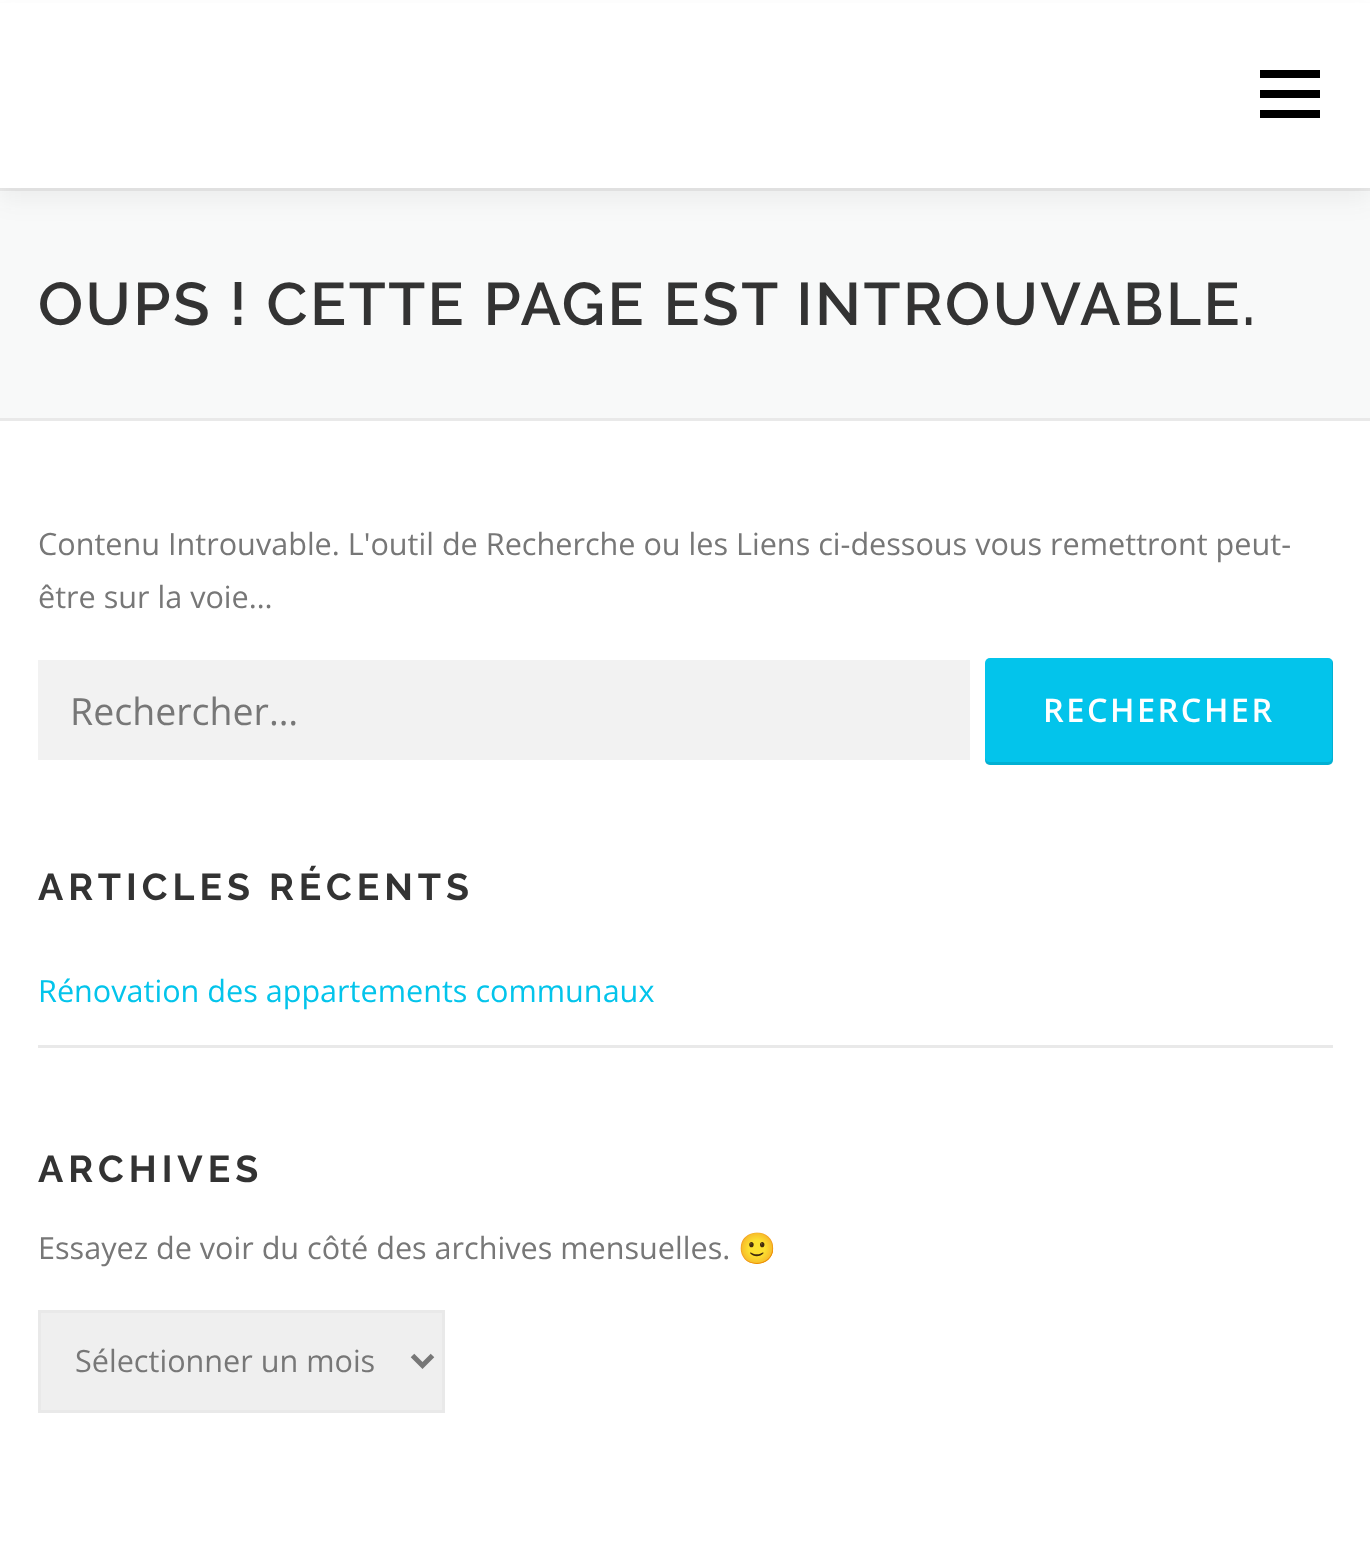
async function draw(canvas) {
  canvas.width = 1370
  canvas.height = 1542
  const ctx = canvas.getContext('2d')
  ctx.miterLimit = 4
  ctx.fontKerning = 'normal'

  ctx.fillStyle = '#fff'
  ctx.fillRect(0, 0, 1370, 1542)
  ctx.fillStyle = '#f8f9f9'
  ctx.fillRect(0, 191, 1370, 227)
  ctx.fillStyle = '#e9e9e9'
  ctx.fillRect(0, 188, 1370, 3)
  ctx.fillStyle = '#3232320f'
  ctx.filter = 'blur(12.5px)'
  ctx.beginPath()
  ctx.rect(0, 13, 1370, 187)
  ctx.fill()
  ctx.filter = 'none'
  ctx.fillStyle = '#fff'
  ctx.fillRect(0, 3, 1370, 185)
  ctx.fillStyle = '#000'
  ctx.fillRect(1260, 90, 60, 8)
  ctx.fillRect(1260, 70, 60, 8)
  ctx.fillRect(1260, 110, 60, 8)
  ctx.fillStyle = '#e9e9e9'
  ctx.fillRect(0, 418, 1370, 3)
  ctx.letterSpacing = '2.5px'
  ctx.font = '600 60px Raleway'
  ctx.fillStyle = '#333'
  ctx.fillText('OUPS ! CETTE PAGE EST INTROUVABLE.', 38, 325)
  ctx.letterSpacing = '0px'
  ctx.font = '30.6px Open Sans'
  ctx.fillStyle = '#777'
  ctx.fillText('Contenu Introuvable. L\'outil de Recherche ou les Liens ci-dessous vous remettront peut-', 38, 555)
  ctx.fillText('être sur la voie…', 38, 608)
  ctx.fillStyle = '#f2f2f2'
  ctx.fillRect(38, 660, 932, 100)
  ctx.font = '37.5px Open Sans'
  ctx.fillStyle = '#777'
  ctx.fillText('Rechercher…', 70, 725)
  ctx.fillStyle = '#03c4eb'
  ctx.beginPath()
  ctx.roundRect(985, 658, 348, 107, 5)
  ctx.fill()
  ctx.fillStyle = '#0000001a'
  ctx.beginPath()
  ctx.moveTo(985, 758)
  ctx.lineTo(985, 760)
  ctx.bezierCurveTo(985, 763, 987, 765, 990, 765)
  ctx.lineTo(1328, 765)
  ctx.bezierCurveTo(1331, 765, 1333, 763, 1333, 760)
  ctx.lineTo(1333, 663)
  ctx.bezierCurveTo(1333, 662, 1333, 661, 1332, 660)
  ctx.lineTo(1332, 758)
  ctx.bezierCurveTo(1332, 760, 1330, 762, 1328, 762)
  ctx.lineTo(990, 762)
  ctx.bezierCurveTo(987, 762, 985, 760, 985, 758)
  ctx.closePath()
  ctx.fill()
  ctx.letterSpacing = '2.5px'
  ctx.font = '600 32.5px Open Sans'
  ctx.fillStyle = '#fff'
  ctx.fillText('RECHERCHER', 1043, 722)
  ctx.letterSpacing = '5px'
  ctx.font = 'bold 37.5px Raleway'
  ctx.fillStyle = '#333'
  ctx.fillText('ARTICLES RÉCENTS', 38, 900)
  ctx.fillStyle = '#e9e9e9'
  ctx.fillRect(38, 1045, 1295, 3)
  ctx.letterSpacing = '0px'
  ctx.font = '30.6px Open Sans'
  ctx.fillStyle = '#03c4eb'
  ctx.fillText('Rénovation des appartements communaux', 38, 1002)
  ctx.letterSpacing = '5px'
  ctx.font = 'bold 37.5px Raleway'
  ctx.fillStyle = '#333'
  ctx.fillText('ARCHIVES', 38, 1182)
  ctx.letterSpacing = '0px'
  ctx.font = '30.6px Open Sans'
  ctx.fillStyle = '#777'
  ctx.fillText('Essayez de voir du côté des archives mensuelles.', 38, 1259)
  ctx.font = '30.6px Noto Color Emoji'
  ctx.fillText('🙂', 738, 1259)
  ctx.fillStyle = '#efefef'
  ctx.beginPath()
  ctx.rect(39.5, 1311.5, 404, 100)
  ctx.fill()
  ctx.strokeStyle = '#e9e9e9'
  ctx.lineWidth = 3
  ctx.stroke()
  ctx.beginPath()
  ctx.moveTo(412.5, 1355.5)
  ctx.lineTo(422.5, 1365.5)
  ctx.lineTo(432.5, 1355.5)
  ctx.strokeStyle = '#777'
  ctx.lineWidth = 5
  ctx.stroke()
  ctx.font = '30.6px Open Sans'
  ctx.fillStyle = '#777'
  ctx.fillText('Sélectionner un mois', 75, 1372)
}

draw(document.querySelector('canvas'))
